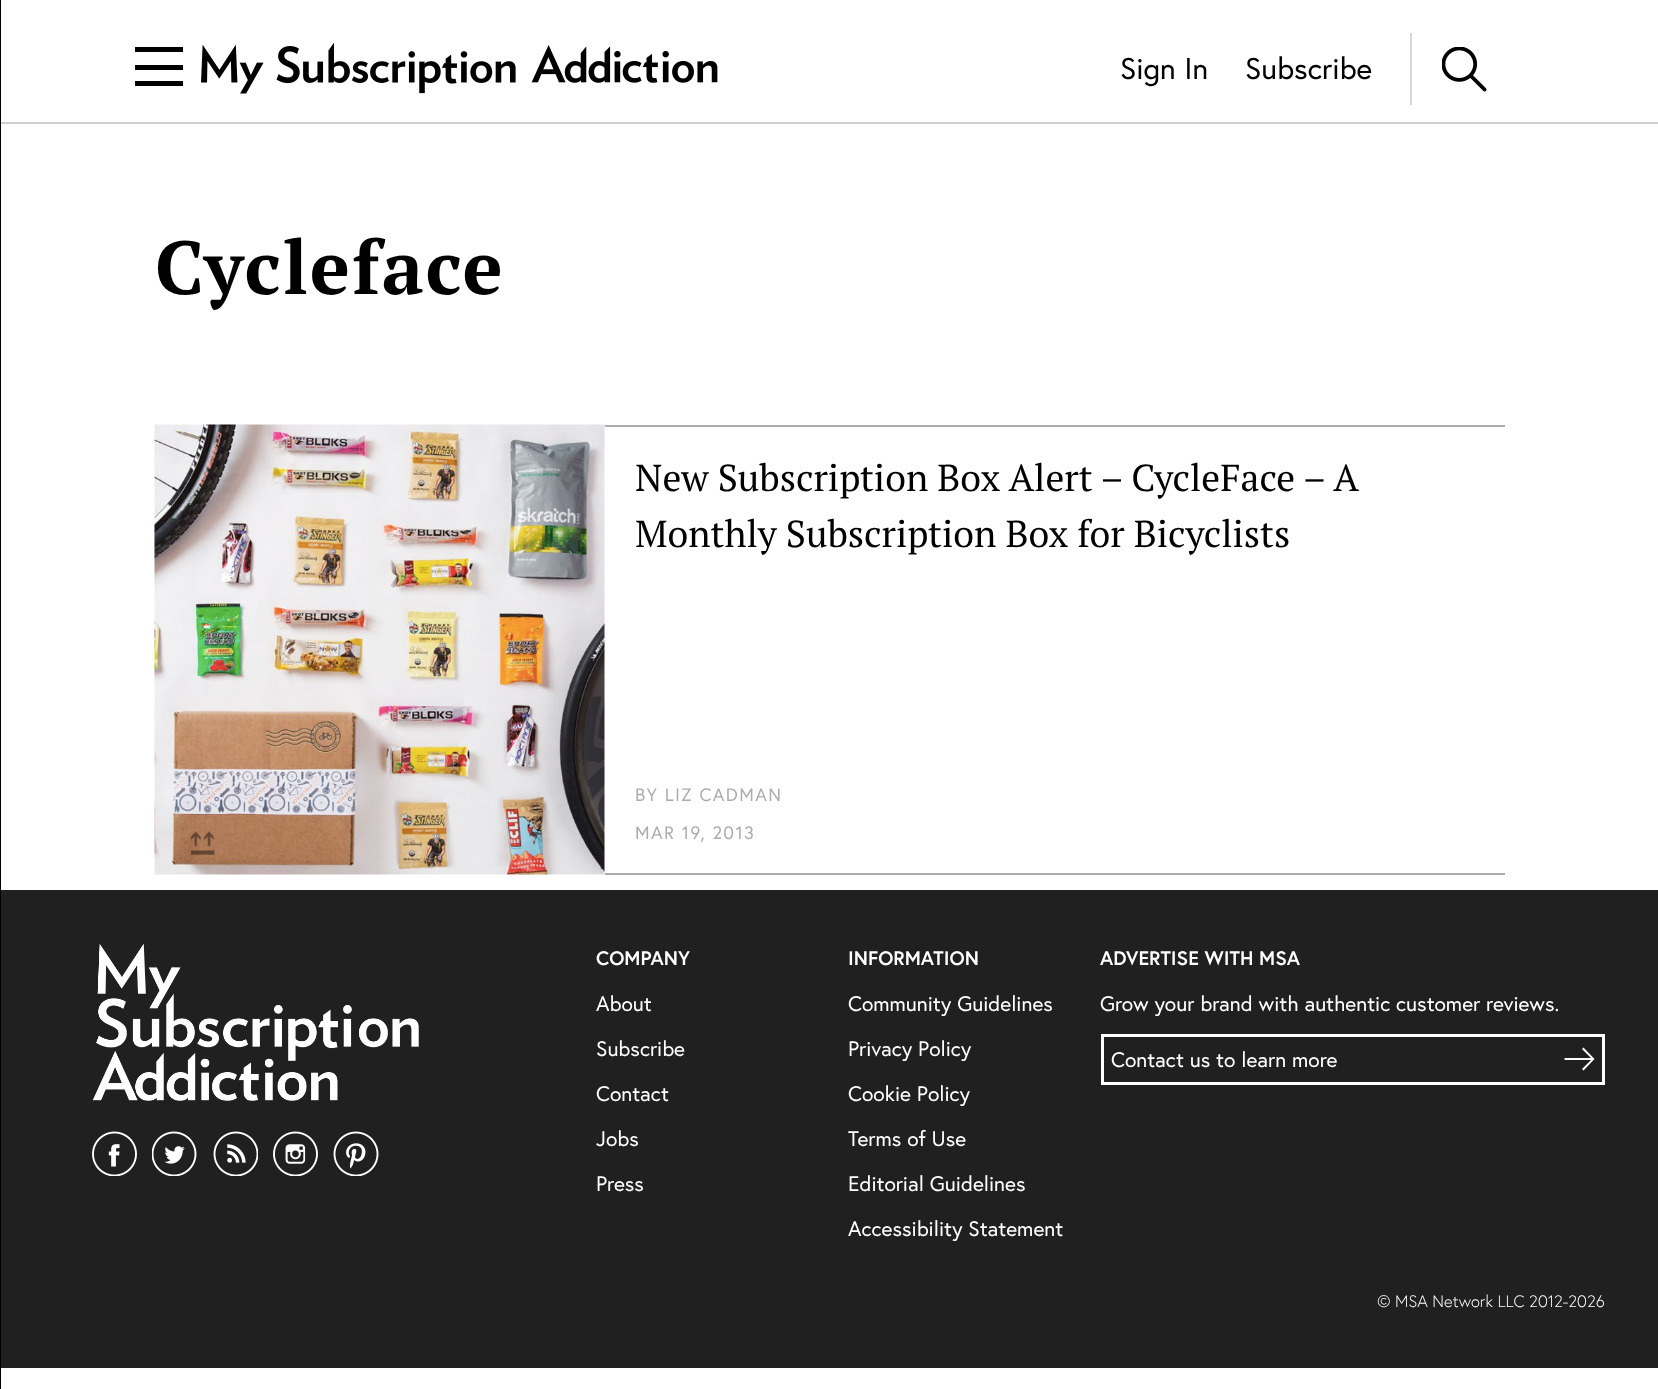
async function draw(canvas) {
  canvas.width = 1658
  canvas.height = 1389
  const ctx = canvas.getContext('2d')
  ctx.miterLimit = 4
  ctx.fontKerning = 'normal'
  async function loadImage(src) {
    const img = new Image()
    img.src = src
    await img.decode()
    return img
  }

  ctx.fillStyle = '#fff'
  ctx.fillRect(0, 0, 1658, 1389)
  ctx.fillStyle = '#d0d0d0'
  ctx.fillRect(0, 122, 1658, 2)
  ctx.fillStyle = '#000'
  ctx.fillRect(0, 0, 1, 1389)
  ctx.fillRect(135, 47, 48, 5)
  ctx.fillRect(135, 65, 48, 5)
  ctx.fillRect(135, 81, 48, 5)
  ctx.drawImage(await loadImage('image0.png'), 201, 42, 517, 52)
  ctx.font = '30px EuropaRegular'
  ctx.fillText('Sign In', 1120, 79)
  ctx.fillText('Subscribe', 1245, 79)
  ctx.fillStyle = '#d8d8d8'
  ctx.fillRect(1410, 33, 2, 72)
  ctx.drawImage(await loadImage('image1.png'), 1442, 47, 45, 45)
  ctx.letterSpacing = '2px'
  ctx.font = 'bold 75px PT Serif'
  ctx.fillStyle = '#000'
  ctx.fillText('Cycleface', 155, 294)
  ctx.drawImage(await loadImage('image2.png'), 154, 424, 451, 451)
  ctx.fillStyle = '#acacac'
  ctx.fillRect(605, 425, 900, 2)
  ctx.fillRect(605, 873, 900, 2)
  ctx.letterSpacing = '0px'
  ctx.font = '37.5px PT Serif'
  ctx.fillStyle = '#000'
  ctx.fillText('New Subscription Box Alert – CycleFace – A', 635, 491)
  ctx.fillText('Monthly Subscription Box for Bicyclists', 635, 547)
  ctx.letterSpacing = '1.4px'
  ctx.font = '18px EuropaRegular'
  ctx.fillStyle = '#acacac'
  ctx.fillText('BY LIZ CADMAN', 635, 801)
  ctx.fillText('MAR 19, 2013', 635, 839)
  ctx.fillStyle = '#202020'
  ctx.fillRect(1, 890, 1657, 478)
  ctx.drawImage(await loadImage('image3.png'), 92, 944, 327, 157)
  ctx.drawImage(await loadImage('image4.png'), 92, 1131, 45, 45)
  ctx.drawImage(await loadImage('image5.png'), 152, 1131, 45, 45)
  ctx.drawImage(await loadImage('image6.png'), 213, 1131, 45, 45)
  ctx.drawImage(await loadImage('image7.png'), 273, 1131, 45, 45)
  ctx.drawImage(await loadImage('image8.png'), 333, 1131, 46, 45)
  ctx.letterSpacing = '0px'
  ctx.font = 'bold 19.5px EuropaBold'
  ctx.fillStyle = '#fff'
  ctx.fillText('COMPANY', 596, 965)
  ctx.font = '21px EuropaRegular'
  ctx.fillText('About', 596, 1011)
  ctx.fillText('Subscribe', 596, 1056)
  ctx.fillText('Contact', 596, 1101)
  ctx.fillText('Jobs', 596, 1146)
  ctx.fillText('Press', 596, 1191)
  ctx.font = 'bold 19.5px EuropaBold'
  ctx.fillText('INFORMATION', 848, 965)
  ctx.font = '21px EuropaRegular'
  ctx.fillText('Community Guidelines', 848, 1011)
  ctx.fillText('Privacy Policy', 848, 1056)
  ctx.fillText('Cookie Policy', 848, 1101)
  ctx.fillText('Terms of Use', 848, 1146)
  ctx.fillText('Editorial Guidelines', 848, 1191)
  ctx.fillText('Accessibility Statement', 848, 1236)
  ctx.font = 'bold 19.5px EuropaBold'
  ctx.fillText('ADVERTISE WITH MSA', 1100, 965)
  ctx.font = '21px EuropaRegular'
  ctx.fillText('Grow your brand with authentic customer reviews.', 1100, 1011)
  ctx.strokeStyle = '#fff'
  ctx.lineWidth = 3
  ctx.strokeRect(1102.5, 1035.5, 501, 48)
  ctx.fillText('Contact us to learn more', 1111, 1067)
  ctx.beginPath()
  ctx.moveTo(1583.5, 1047.5)
  ctx.lineTo(1582, 1049)
  ctx.lineTo(1591, 1058)
  ctx.lineTo(1564.5, 1058)
  ctx.lineTo(1564.5, 1060)
  ctx.lineTo(1591, 1060)
  ctx.lineTo(1582, 1069)
  ctx.lineTo(1583.5, 1070.5)
  ctx.lineTo(1594.5, 1059)
  ctx.closePath()
  ctx.fill('evenodd')
  ctx.font = '300 16.5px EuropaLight'
  ctx.fillText('© MSA Network LLC 2012-2026', 1377, 1307)
}

draw(document.querySelector('canvas'))
